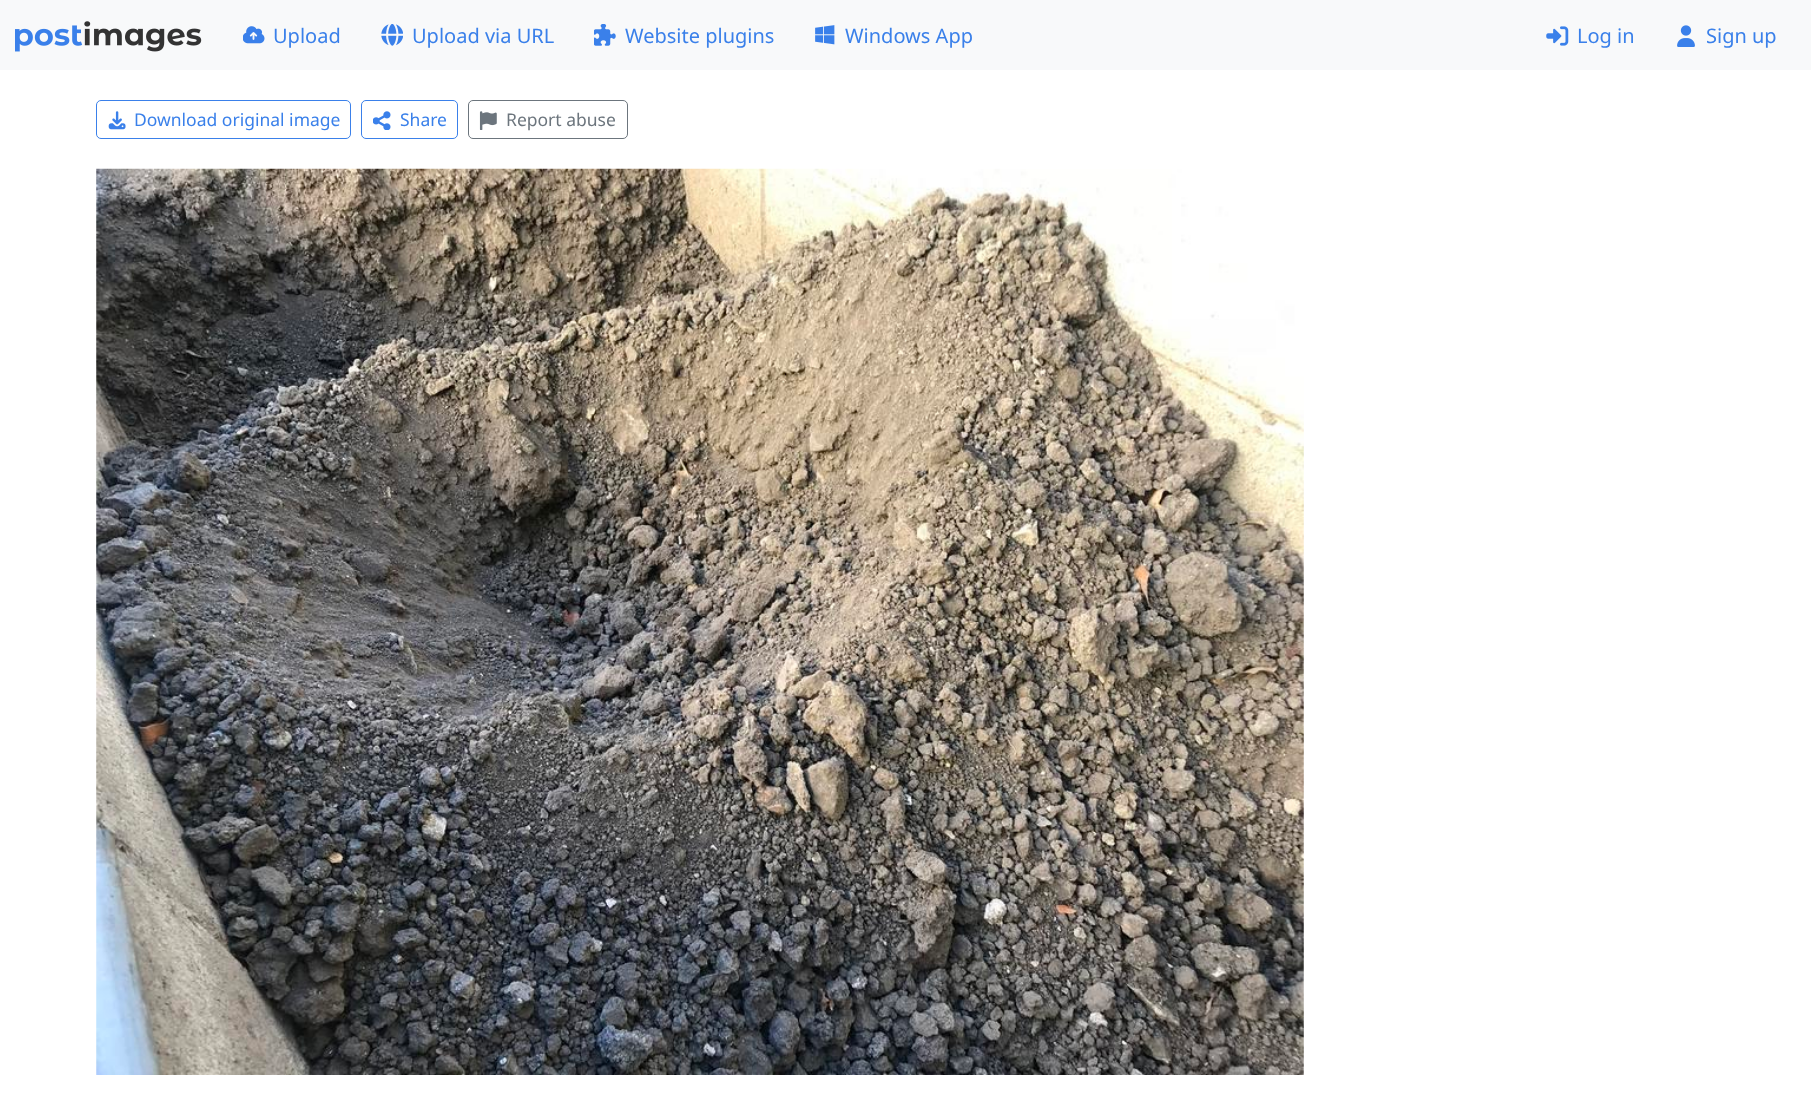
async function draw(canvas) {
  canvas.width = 1811
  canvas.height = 1108
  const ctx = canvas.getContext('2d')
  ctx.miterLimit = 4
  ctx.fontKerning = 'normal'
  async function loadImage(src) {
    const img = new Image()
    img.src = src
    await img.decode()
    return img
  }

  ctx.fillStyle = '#fff'
  ctx.fillRect(0, 0, 1811, 1108)
  ctx.fillStyle = '#f8f9fa'
  ctx.fillRect(0, 0, 1811, 70)
  ctx.drawImage(await loadImage('image0.png'), 15, 21, 187, 31)
  ctx.drawImage(await loadImage('image1.png'), 243, 26, 22, 18)
  ctx.font = '20px Noto Sans'
  ctx.fillStyle = '#3a80ea'
  ctx.fillText('Upload', 273, 43)
  ctx.drawImage(await loadImage('image2.png'), 381, 24, 22, 22)
  ctx.fillText('Upload via URL', 412, 43)
  ctx.drawImage(await loadImage('image3.png'), 594, 24, 22, 22)
  ctx.fillText('Website plugins', 625, 43)
  ctx.drawImage(await loadImage('image4.png'), 815, 25, 20, 20)
  ctx.fillText('Windows App', 845, 43)
  ctx.drawImage(await loadImage('image5.png'), 1546, 26, 23, 20)
  ctx.fillText('Log in', 1577, 43)
  ctx.drawImage(await loadImage('image6.png'), 1677, 25, 18, 22)
  ctx.fillText('Sign up', 1706, 43)
  ctx.beginPath()
  ctx.roundRect(96.5, 100.5, 254, 38, 4.5)
  ctx.strokeStyle = '#3a80ea'
  ctx.stroke()
  ctx.drawImage(await loadImage('image7.png'), 108, 111, 18, 19)
  ctx.font = '17.5px Noto Sans'
  ctx.fillText('Download original image', 134, 126)
  ctx.beginPath()
  ctx.roundRect(361.5, 100.5, 96, 38, 4.5)
  ctx.stroke()
  ctx.drawImage(await loadImage('image8.png'), 373, 111, 18, 19)
  ctx.fillText('Share', 400, 126)
  ctx.beginPath()
  ctx.roundRect(468.5, 100.5, 159, 38, 4.5)
  ctx.strokeStyle = '#6c757d'
  ctx.stroke()
  ctx.drawImage(await loadImage('image9.png'), 479, 111, 18, 19)
  ctx.fillStyle = '#6c757d'
  ctx.fillText('Report abuse', 506, 126)
  ctx.drawImage(await loadImage('image10.png'), 96, 168, 1208, 907)
}

draw(document.querySelector('canvas'))
